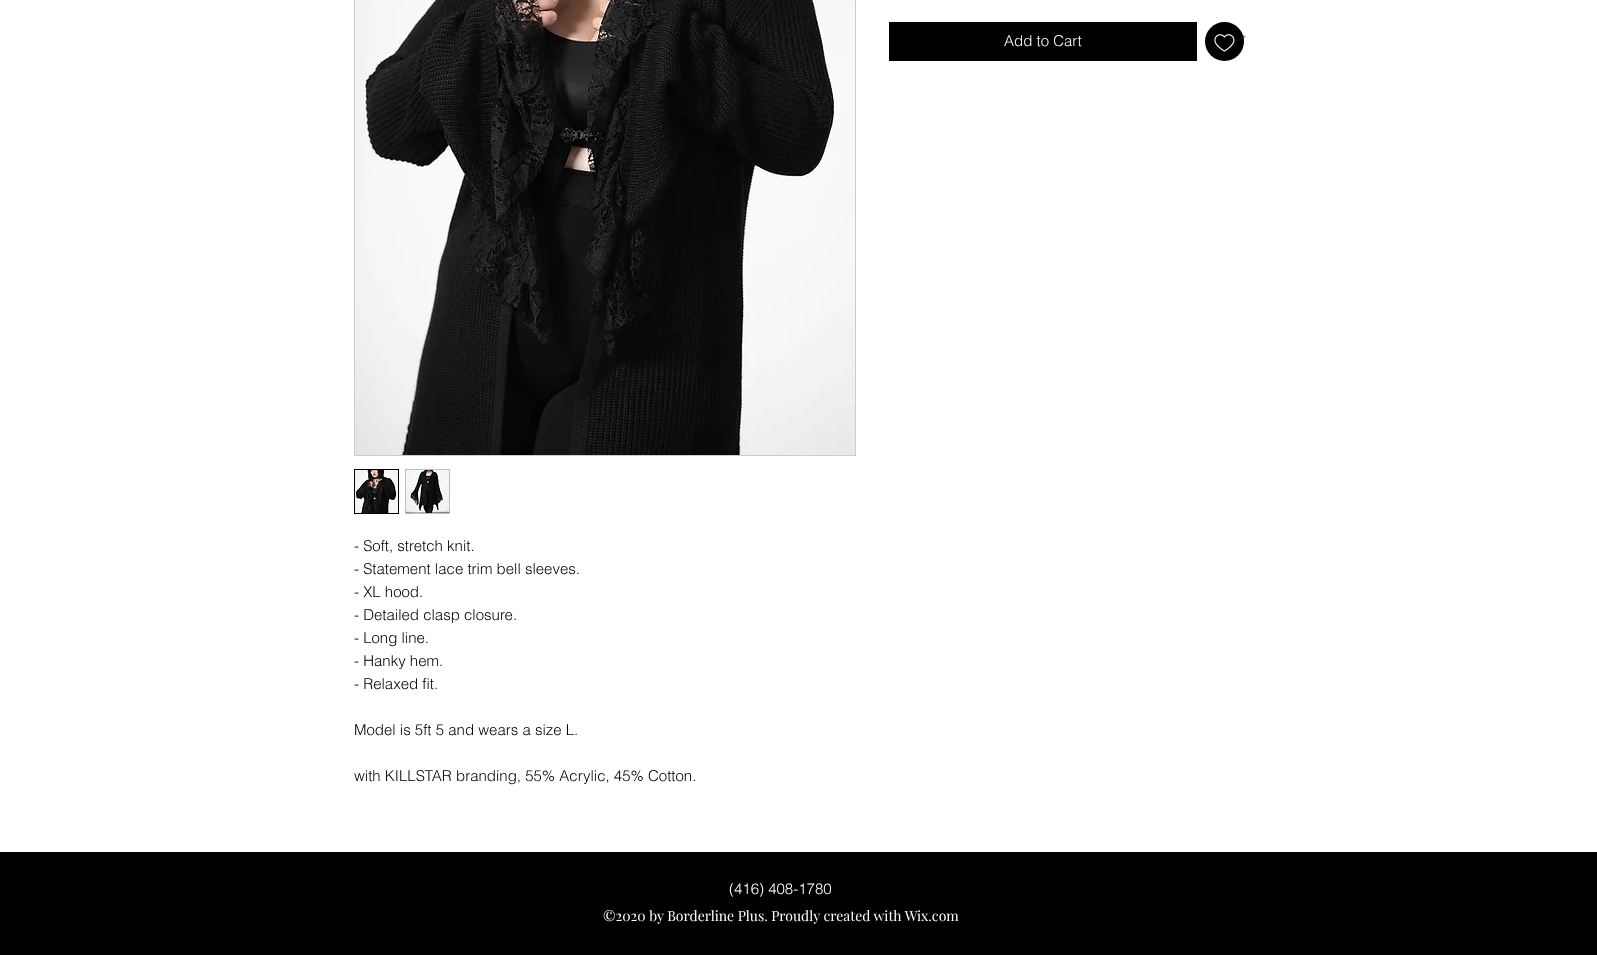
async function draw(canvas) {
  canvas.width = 1597
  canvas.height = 955
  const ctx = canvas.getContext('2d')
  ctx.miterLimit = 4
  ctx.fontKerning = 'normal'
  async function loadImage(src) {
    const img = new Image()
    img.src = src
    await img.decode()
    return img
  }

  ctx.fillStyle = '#fff'
  ctx.fillRect(0, 0, 1597, 955)
  ctx.fillStyle = '#000'
  ctx.fillRect(889, 22, 308, 39)
  ctx.font = '300 15px helvetica'
  ctx.fillStyle = '#fff'
  ctx.fillText('Add to Cart', 1004, 46)
  ctx.fillStyle = '#000'
  ctx.beginPath()
  ctx.arc(1224.5, 41.5, 19.5, 0, 2 * Math.PI)
  ctx.fill()
  ctx.drawImage(await loadImage('image0.png'), 1214, 34, 21, 18)
  ctx.font = 'italic 300 15px helvetica'
  ctx.fillStyle = '#272727'
  ctx.fillText('*', 1238, 46)
  ctx.strokeStyle = '#ccc'
  ctx.strokeRect(354.5, -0.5, 501, 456)
  ctx.drawImage(await loadImage('image1.png'), 355, 0, 500, 455)
  ctx.strokeStyle = '#000'
  ctx.strokeRect(354.5, 469.5, 44, 44)
  ctx.drawImage(await loadImage('image2.png'), 355, 470, 43, 43)
  ctx.strokeStyle = '#bfbfbf'
  ctx.strokeRect(405.5, 469.5, 44, 44)
  ctx.drawImage(await loadImage('image3.png'), 406, 470, 43, 43)
  ctx.font = '300 15px helvetica'
  ctx.fillStyle = '#000'
  ctx.fillText('- Soft, stretch knit.', 354, 551)
  ctx.fillText('- Statement lace trim bell sleeves.', 354, 574)
  ctx.fillText('- XL hood.', 354, 597)
  ctx.fillText('- Detailed clasp closure.', 354, 620)
  ctx.fillText('- Long line.', 354, 643)
  ctx.fillText('- Hanky hem.', 354, 666)
  ctx.fillText('- Relaxed fit.', 354, 689)
  ctx.fillText('Model is 5ft 5 and wears a size L.', 354, 735)
  ctx.fillText('with KILLSTAR branding, 55% Acrylic, 45% Cotton.', 354, 781)
  ctx.fillRect(0, 852, 1597, 103)
  ctx.fillStyle = '#fff'
  ctx.fillText('(416) 408-1780', 729, 894)
  ctx.font = '14px Playfair Display'
  ctx.fillText('©2020 by Borderline Plus. Proudly created with Wix.com', 603, 921)
}

draw(document.querySelector('canvas'))
